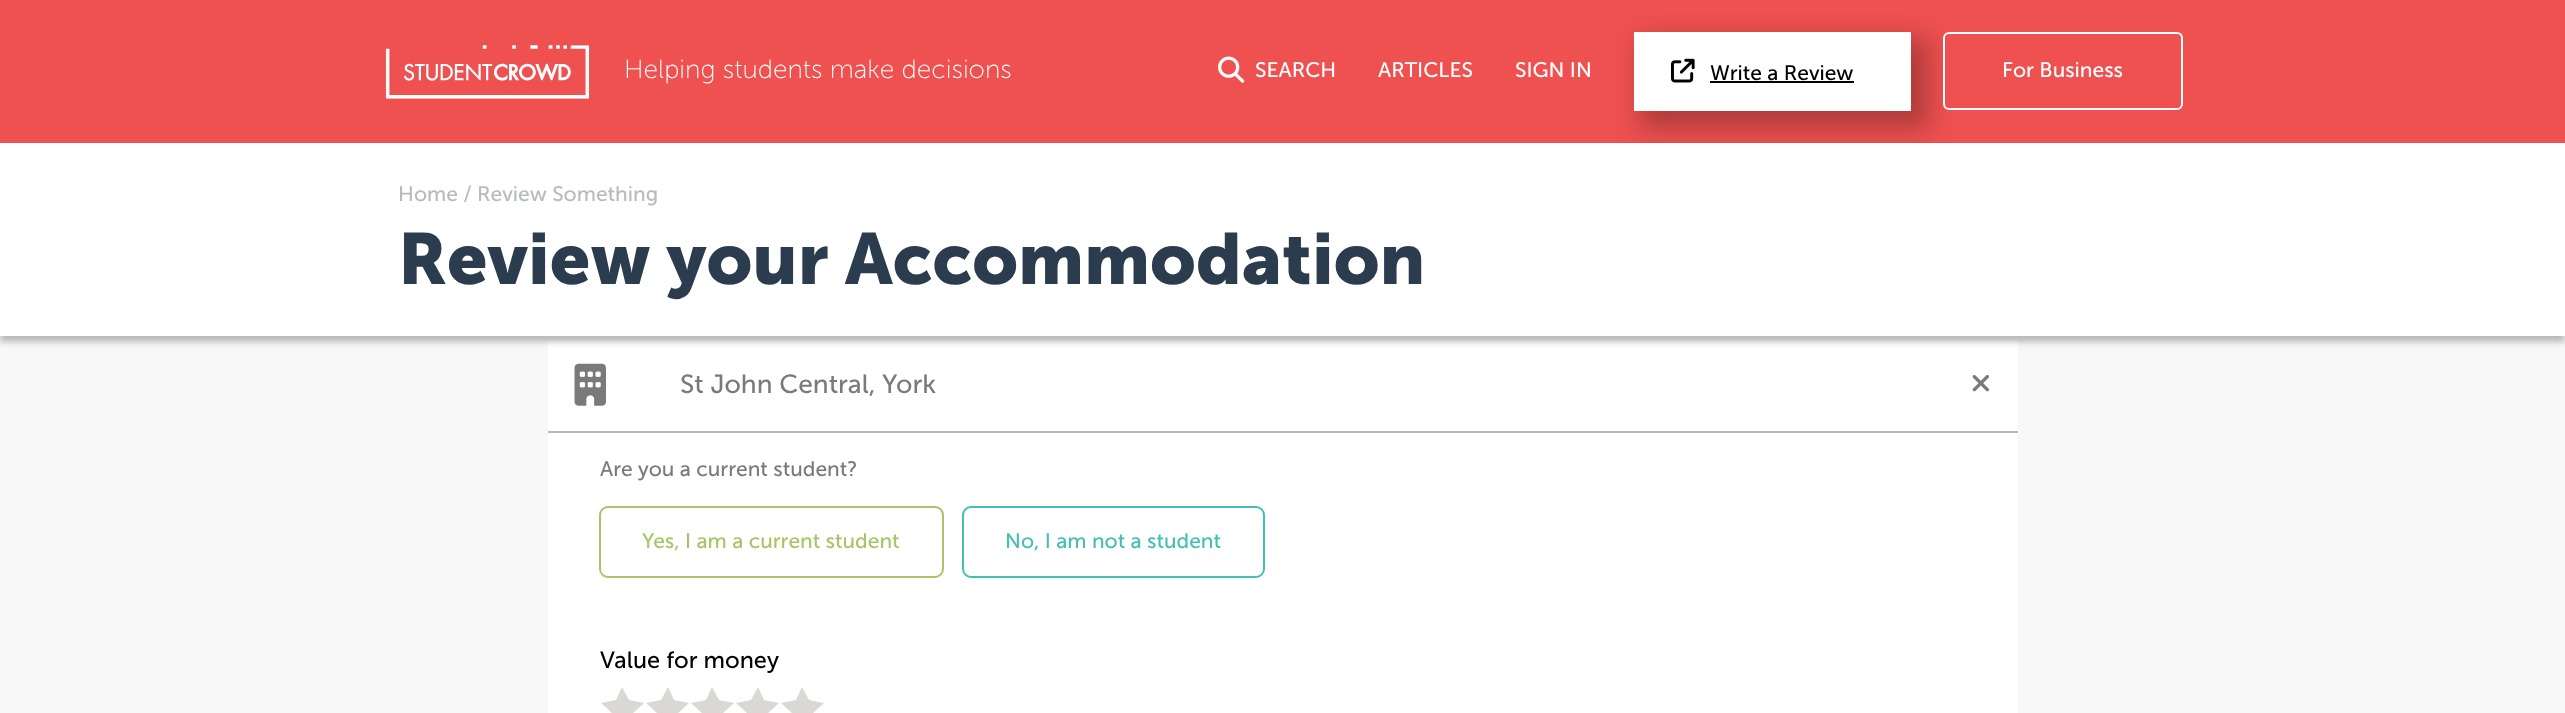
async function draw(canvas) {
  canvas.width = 2565
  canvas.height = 713
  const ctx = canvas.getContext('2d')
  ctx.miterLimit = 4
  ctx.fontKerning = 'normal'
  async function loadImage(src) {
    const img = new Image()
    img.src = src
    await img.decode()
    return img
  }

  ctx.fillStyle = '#f8f8f8'
  ctx.fillRect(0, 0, 2565, 713)
  ctx.fillStyle = '#ef5050'
  ctx.fillRect(0, 0, 2565, 143)
  ctx.drawImage(await loadImage('image0.png'), 385, 45, 205, 54)
  ctx.font = '300 26.25px "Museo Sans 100"'
  ctx.fillStyle = '#fff'
  ctx.fillText('Helping students make decisions', 624, 78)
  ctx.drawImage(await loadImage('image1.png'), 1218, 56, 27, 27)
  ctx.font = '21px "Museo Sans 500"'
  ctx.fillText('SEARCH', 1255, 77)
  ctx.fillText('ARTICLES', 1378, 77)
  ctx.fillText('SIGN IN', 1515, 77)
  ctx.fillStyle = '#00000040'
  ctx.filter = 'blur(12px)'
  ctx.beginPath()
  ctx.rect(1640, 38, 289, 91)
  ctx.fill()
  ctx.filter = 'none'
  ctx.fillStyle = '#fff'
  ctx.fillRect(1634, 32, 277, 79)
  ctx.drawImage(await loadImage('image2.png'), 1671, 58, 24, 25)
  ctx.fillStyle = '#000'
  ctx.fillText('Write a Review', 1710, 80)
  ctx.fillRect(1710, 81, 144, 2)
  ctx.fillStyle = '#ef5050'
  ctx.beginPath()
  ctx.roundRect(1944, 33, 238, 76, 5)
  ctx.fill()
  ctx.strokeStyle = '#fff'
  ctx.lineWidth = 2
  ctx.stroke()
  ctx.fillStyle = '#fff'
  ctx.fillText('For Business', 2002, 77)
  ctx.fillRect(548, 341, 1470, 372)
  ctx.fillStyle = '#00000040'
  ctx.filter = 'blur(3px)'
  ctx.beginPath()
  ctx.rect(0, 149, 2565, 193)
  ctx.fill()
  ctx.filter = 'none'
  ctx.fillStyle = '#fff'
  ctx.fillRect(0, 143, 2565, 193)
  ctx.fillStyle = '#b6bbc0'
  ctx.fillText('Home / Review Something', 398, 201)
  ctx.font = 'bold 72px "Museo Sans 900"'
  ctx.fillStyle = '#2a3c4e'
  ctx.fillText('Review your Accommodation', 398, 284)
  ctx.fillStyle = '#b6bbc0'
  ctx.fillRect(548, 431, 1470, 2)
  ctx.drawImage(await loadImage('image3.png'), 574, 363, 32, 43)
  ctx.font = '26.25px "Museo Sans 500"'
  ctx.fillStyle = '#7a7a7a'
  ctx.fillText('St John Central, York', 680, 393)
  ctx.drawImage(await loadImage('image4.png'), 1972, 375, 17, 17)
  ctx.font = '21px "Museo Sans 500"'
  ctx.fillText('Are you a current student?', 600, 476)
  ctx.beginPath()
  ctx.roundRect(600, 507, 343, 70, 8)
  ctx.strokeStyle = '#a8c566'
  ctx.stroke()
  ctx.fillStyle = '#a8c566'
  ctx.fillText('Yes, I am a current student', 642, 548)
  ctx.beginPath()
  ctx.roundRect(963, 507, 301, 70, 8)
  ctx.strokeStyle = '#44bfb6'
  ctx.stroke()
  ctx.fillStyle = '#44bfb6'
  ctx.fillText('No, I am not a student', 1005, 548)
  ctx.font = '23.5px "Museo Sans 500"'
  ctx.fillStyle = '#000'
  ctx.fillText('Value for money', 600, 668)
  ctx.fillStyle = '#dad8d4'
  ctx.beginPath()
  ctx.moveTo(622, 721)
  ctx.lineTo(609, 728)
  ctx.lineTo(612, 713)
  ctx.lineTo(601, 703)
  ctx.lineTo(616, 700)
  ctx.lineTo(622, 687)
  ctx.lineTo(629, 700)
  ctx.lineTo(644, 703)
  ctx.lineTo(633, 713)
  ctx.lineTo(636, 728)
  ctx.closePath()
  ctx.fill('evenodd')
  ctx.beginPath()
  ctx.moveTo(668, 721)
  ctx.lineTo(654, 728)
  ctx.lineTo(657, 713)
  ctx.lineTo(646, 703)
  ctx.lineTo(661, 700)
  ctx.lineTo(668, 687)
  ctx.lineTo(674, 700)
  ctx.lineTo(689, 703)
  ctx.lineTo(678, 713)
  ctx.lineTo(681, 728)
  ctx.closePath()
  ctx.fill('evenodd')
  ctx.beginPath()
  ctx.moveTo(712, 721)
  ctx.lineTo(699, 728)
  ctx.lineTo(702, 713)
  ctx.lineTo(691, 703)
  ctx.lineTo(706, 700)
  ctx.lineTo(712, 687)
  ctx.lineTo(719, 700)
  ctx.lineTo(734, 703)
  ctx.lineTo(723, 713)
  ctx.lineTo(726, 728)
  ctx.closePath()
  ctx.fill('evenodd')
  ctx.beginPath()
  ctx.moveTo(758, 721)
  ctx.lineTo(744, 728)
  ctx.lineTo(747, 713)
  ctx.lineTo(736, 703)
  ctx.lineTo(751, 700)
  ctx.lineTo(758, 687)
  ctx.lineTo(764, 700)
  ctx.lineTo(779, 703)
  ctx.lineTo(768, 713)
  ctx.lineTo(771, 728)
  ctx.closePath()
  ctx.fill('evenodd')
  ctx.beginPath()
  ctx.moveTo(802, 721)
  ctx.lineTo(789, 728)
  ctx.lineTo(792, 713)
  ctx.lineTo(781, 703)
  ctx.lineTo(796, 700)
  ctx.lineTo(802, 687)
  ctx.lineTo(809, 700)
  ctx.lineTo(824, 703)
  ctx.lineTo(813, 713)
  ctx.lineTo(816, 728)
  ctx.closePath()
  ctx.fill('evenodd')
}

draw(document.querySelector('canvas'))
